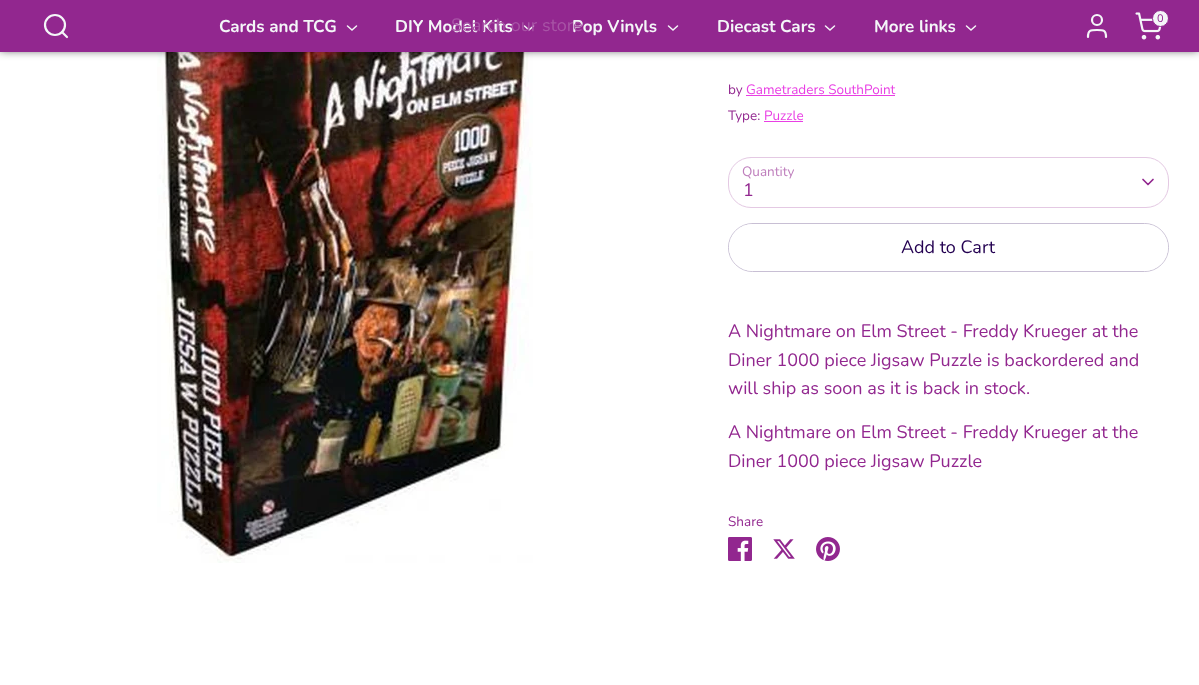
async function draw(canvas) {
  canvas.width = 1199
  canvas.height = 685
  const ctx = canvas.getContext('2d')
  ctx.miterLimit = 4
  ctx.fontKerning = 'normal'
  async function loadImage(src) {
    const img = new Image()
    img.src = src
    await img.decode()
    return img
  }

  ctx.fillStyle = '#fff'
  ctx.fillRect(0, 0, 1199, 685)
  ctx.drawImage(await loadImage('image1.png'), 157, 52, 376, 511)
  ctx.fillStyle = '#000000bf'
  ctx.filter = 'blur(5px)'
  ctx.beginPath()
  ctx.rect(0, -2, 1199, 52)
  ctx.fill()
  ctx.filter = 'none'
  ctx.fillStyle = '#92278f'
  ctx.fillRect(0, 0, 1199, 52)
  ctx.beginPath()
  ctx.arc(55, 25, 10, 0, 2 * Math.PI)
  ctx.strokeStyle = '#f4f6f8'
  ctx.lineWidth = 2.2
  ctx.stroke()
  ctx.beginPath()
  ctx.moveTo(67, 37)
  ctx.lineTo(62, 32)
  ctx.lineCap = 'round'
  ctx.lineJoin = 'round'
  ctx.stroke()
  ctx.font = 'bold 17px Nunito'
  ctx.fillStyle = '#f4f6f8'
  ctx.fillText('DIY Model Kits', 395, 32)
  ctx.beginPath()
  ctx.moveTo(524.5, 26)
  ctx.lineTo(529, 30)
  ctx.lineTo(533.5, 26)
  ctx.lineWidth = 1.5
  ctx.lineJoin = 'miter'
  ctx.stroke()
  ctx.fillText('Pop Vinyls', 572, 32)
  ctx.font = '18px Nunito'
  ctx.fillStyle = '#a854a6'
  ctx.fillText('Search our store', 451, 31)
  ctx.beginPath()
  ctx.moveTo(1106, 37)
  ctx.bezierCurveTo(1106, 30, 1103.5, 30, 1097, 30)
  ctx.bezierCurveTo(1090.5, 30, 1088, 30, 1088, 37)
  ctx.lineWidth = 2.2
  ctx.lineJoin = 'round'
  ctx.stroke()
  ctx.beginPath()
  ctx.arc(1097, 20, 5, 0, 2 * Math.PI)
  ctx.stroke()
  ctx.drawImage(await loadImage('image0.png'), 1135, 12, 27, 28)
  ctx.fillStyle = '#f4f6f8'
  ctx.beginPath()
  ctx.arc(1160.5, 18.5, 8, 0, 2 * Math.PI)
  ctx.fill()
  ctx.strokeStyle = '#92278f'
  ctx.lineWidth = 1
  ctx.stroke()
  ctx.font = '11px Nunito'
  ctx.fillStyle = '#92278f'
  ctx.fillText('0', 1157, 22)
  ctx.font = 'bold 17px Nunito'
  ctx.fillStyle = '#f4f6f8'
  ctx.fillText('Cards and TCG', 219, 32)
  ctx.beginPath()
  ctx.moveTo(347.5, 26)
  ctx.lineTo(352, 30)
  ctx.lineTo(356.5, 26)
  ctx.strokeStyle = '#f4f6f8'
  ctx.lineWidth = 1.5
  ctx.lineJoin = 'miter'
  ctx.stroke()
  ctx.beginPath()
  ctx.moveTo(668.5, 26)
  ctx.lineTo(673, 30)
  ctx.lineTo(677.5, 26)
  ctx.stroke()
  ctx.fillText('Diecast Cars', 717, 32)
  ctx.beginPath()
  ctx.moveTo(825.5, 26)
  ctx.lineTo(830, 30)
  ctx.lineTo(834.5, 26)
  ctx.stroke()
  ctx.fillText('More links', 874, 32)
  ctx.beginPath()
  ctx.moveTo(966.5, 26)
  ctx.lineTo(971, 30)
  ctx.lineTo(975.5, 26)
  ctx.stroke()
  ctx.font = '13.5px Nunito'
  ctx.fillStyle = '#92278f'
  ctx.fillText('by', 728, 94)
  ctx.fillStyle = '#e93fe4'
  ctx.fillText('Gametraders SouthPoint', 746, 94)
  ctx.fillRect(746, 95, 149, 1)
  ctx.fillStyle = '#92278f'
  ctx.fillText('Type:', 728, 120)
  ctx.fillStyle = '#e93fe4'
  ctx.fillText('Puzzle', 764, 120)
  ctx.fillRect(764, 121, 39, 1)
  ctx.fillStyle = '#be7dbc'
  ctx.fillText('Quantity', 742, 176)
  ctx.beginPath()
  ctx.roundRect(728.5, 157.5, 440, 50, 22.5)
  ctx.strokeStyle = '#e4c9e3'
  ctx.lineWidth = 1
  ctx.stroke()
  ctx.beginPath()
  ctx.moveTo(1143, 179.5)
  ctx.lineTo(1148, 184.5)
  ctx.lineTo(1153, 179.5)
  ctx.strokeStyle = '#92278f'
  ctx.lineWidth = 1.7
  ctx.lineJoin = 'round'
  ctx.stroke()
  ctx.font = '18px Nunito'
  ctx.fillStyle = '#92278f'
  ctx.fillText('1', 743, 196)
  ctx.beginPath()
  ctx.roundRect(728.5, 223.5, 440, 48, 24)
  ctx.strokeStyle = '#c8bfd4'
  ctx.lineWidth = 1
  ctx.lineJoin = 'miter'
  ctx.stroke()
  ctx.fillStyle = '#fff'
  ctx.beginPath()
  ctx.roundRect(729, 224, 439, 47, 23.5)
  ctx.fill()
  ctx.fillStyle = '#230051'
  ctx.fillText('Add to Cart', 901, 253)
  ctx.fillStyle = '#92278f'
  ctx.fillText('A Nightmare on Elm Street - Freddy Krueger at the', 728, 337)
  ctx.fillText('Diner 1000 piece Jigsaw Puzzle is backordered and', 728, 366)
  ctx.fillText('will ship as soon as it is back in stock.', 728, 394)
  ctx.fillText('A Nightmare on Elm Street - Freddy Krueger at the', 728, 438)
  ctx.fillText('Diner 1000 piece Jigsaw Puzzle', 728, 467)
  ctx.font = '13.5px Nunito'
  ctx.fillText('Share', 728, 526)
  ctx.drawImage(await loadImage('image2.png'), 728, 537, 24, 24)
  ctx.drawImage(await loadImage('image3.png'), 773, 539, 22, 20)
  ctx.drawImage(await loadImage('image4.png'), 816, 537, 24, 24)
}

draw(document.querySelector('canvas'))
